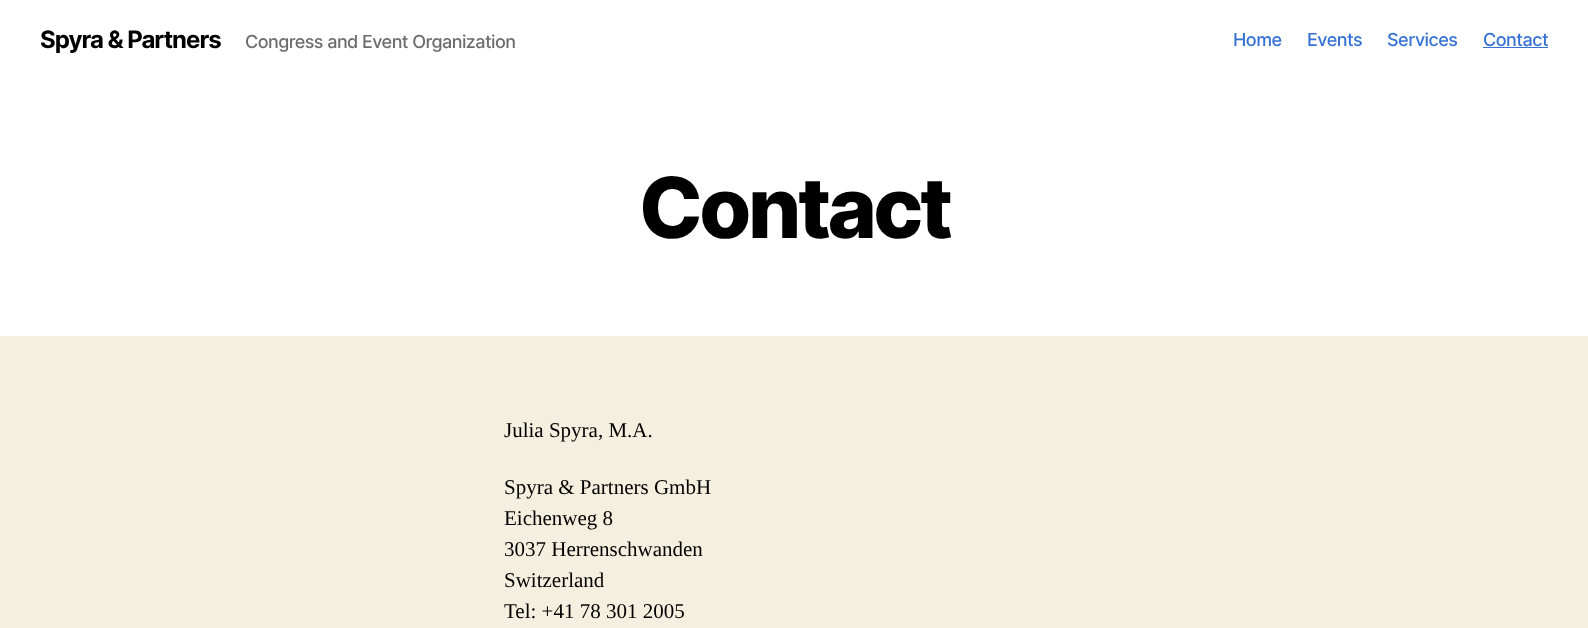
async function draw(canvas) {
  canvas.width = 1588
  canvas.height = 628
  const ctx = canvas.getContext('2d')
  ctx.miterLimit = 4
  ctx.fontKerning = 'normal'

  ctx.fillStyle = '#f5efe0'
  ctx.fillRect(0, 0, 1588, 628)
  ctx.fillStyle = '#fff'
  ctx.fillRect(0, 0, 1588, 336)
  ctx.letterSpacing = '-1px'
  ctx.font = 'bold 24px Inter'
  ctx.fillStyle = '#000'
  ctx.fillText('Spyra & Partners', 40, 48)
  ctx.letterSpacing = '-0.55px'
  ctx.font = '500 18px Inter'
  ctx.fillStyle = '#6d6d6d'
  ctx.fillText('Congress and Event Organization', 245, 48)
  ctx.letterSpacing = '-0.5px'
  ctx.fillStyle = '#3572d4'
  ctx.fillText('Home', 1233, 46)
  ctx.fillText('Events', 1307, 46)
  ctx.fillText('Services', 1387, 46)
  ctx.fillText('Contact', 1483, 46)
  ctx.fillRect(1483, 47, 65, 1)
  ctx.letterSpacing = '-3.5px'
  ctx.font = '800 84px Inter'
  ctx.fillStyle = '#000'
  ctx.fillText('Contact', 639, 238)
  ctx.letterSpacing = '0px'
  ctx.font = '21px Liberation Serif'
  ctx.fillText('Julia Spyra, M.A.', 504, 437)
  ctx.fillText('Spyra & Partners GmbH', 504, 494)
  ctx.fillText('Eichenweg 8', 504, 525)
  ctx.fillText('3037 Herrenschwanden', 504, 556)
  ctx.fillText('Switzerland', 504, 587)
  ctx.fillText('Tel: +41 78 301 2005', 504, 618)
}

draw(document.querySelector('canvas'))
